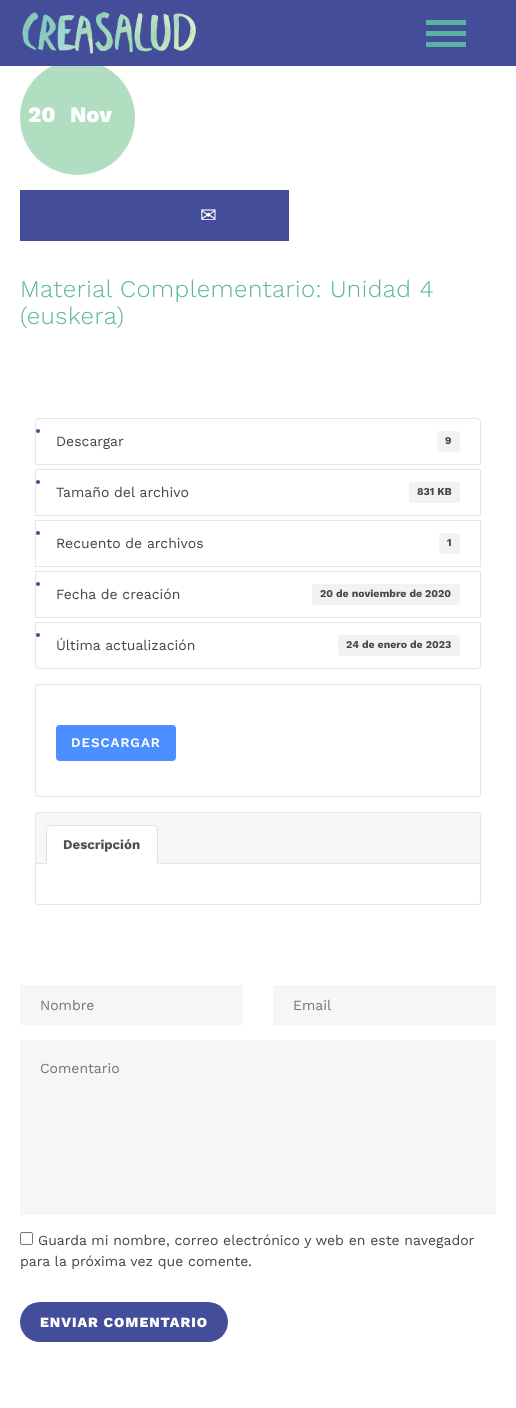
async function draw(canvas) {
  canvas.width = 516
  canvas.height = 1408
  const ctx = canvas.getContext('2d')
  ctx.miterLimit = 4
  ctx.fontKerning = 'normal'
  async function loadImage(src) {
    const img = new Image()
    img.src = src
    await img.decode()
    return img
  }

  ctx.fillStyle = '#fff'
  ctx.fillRect(0, 0, 516, 1408)
  ctx.fillStyle = '#b1dec1'
  ctx.beginPath()
  ctx.arc(77.5, 117.5, 57.5, 0, 2 * Math.PI)
  ctx.fill()
  ctx.fillStyle = '#444d99'
  ctx.fillRect(0, 0, 516, 66)
  ctx.drawImage(await loadImage('image0.png'), 22, 12, 174, 42)
  ctx.fillStyle = '#59b5a1'
  ctx.fillRect(426, 20, 40, 5)
  ctx.fillRect(426, 31, 40, 5)
  ctx.fillRect(426, 42, 40, 5)
  ctx.font = '800 22px Work Sans'
  ctx.fillStyle = '#fff'
  ctx.fillText('20', 28, 122)
  ctx.fillText('Nov', 70, 122)
  ctx.fillStyle = '#444d99'
  ctx.fillRect(20, 190, 269, 51)
  ctx.font = '20px DejaVu Sans'
  ctx.fillStyle = '#fff'
  ctx.fillText('✉', 200, 222)
  ctx.letterSpacing = '0.5px'
  ctx.font = '300 24px Work Sans'
  ctx.fillStyle = '#59b5a1'
  ctx.fillText('Material Complementario: Unidad 4', 20, 297)
  ctx.fillText('(euskera)', 20, 324)
  ctx.beginPath()
  ctx.roundRect(35.5, 418.5, 445, 46, [3.5, 3.5, 0, 0])
  ctx.strokeStyle = '#e5e5e5'
  ctx.stroke()
  ctx.fillStyle = '#444d99'
  ctx.beginPath()
  ctx.arc(38, 431, 2, 0, 2 * Math.PI)
  ctx.fill()
  ctx.letterSpacing = '0px'
  ctx.font = '14px Work Sans'
  ctx.fillStyle = '#454545'
  ctx.fillText('Descargar', 56, 446)
  ctx.fillStyle = '#f2f2f2'
  ctx.beginPath()
  ctx.roundRect(437, 431, 23, 21, 3)
  ctx.fill()
  ctx.font = 'bold 10.5px Work Sans'
  ctx.fillStyle = '#454545'
  ctx.fillText('9', 445, 444)
  ctx.strokeRect(35.5, 469.5, 445, 46)
  ctx.fillStyle = '#444d99'
  ctx.beginPath()
  ctx.arc(38, 482, 2, 0, 2 * Math.PI)
  ctx.fill()
  ctx.font = '14px Work Sans'
  ctx.fillStyle = '#454545'
  ctx.fillText('Tamaño del archivo', 56, 497)
  ctx.fillStyle = '#f2f2f2'
  ctx.beginPath()
  ctx.roundRect(409, 482, 51, 21, 3)
  ctx.fill()
  ctx.font = 'bold 10.5px Work Sans'
  ctx.fillStyle = '#454545'
  ctx.fillText('831 KB', 417, 495)
  ctx.strokeRect(35.5, 520.5, 445, 46)
  ctx.fillStyle = '#444d99'
  ctx.beginPath()
  ctx.arc(38, 533, 2, 0, 2 * Math.PI)
  ctx.fill()
  ctx.font = '14px Work Sans'
  ctx.fillStyle = '#454545'
  ctx.fillText('Recuento de archivos', 56, 548)
  ctx.fillStyle = '#f2f2f2'
  ctx.beginPath()
  ctx.roundRect(439, 533, 21, 21, 3)
  ctx.fill()
  ctx.font = 'bold 10.5px Work Sans'
  ctx.fillStyle = '#454545'
  ctx.fillText('1', 447, 546)
  ctx.strokeRect(35.5, 571.5, 445, 46)
  ctx.fillStyle = '#444d99'
  ctx.beginPath()
  ctx.arc(38, 584, 2, 0, 2 * Math.PI)
  ctx.fill()
  ctx.font = '14px Work Sans'
  ctx.fillStyle = '#454545'
  ctx.fillText('Fecha de creación', 56, 599)
  ctx.fillStyle = '#f2f2f2'
  ctx.beginPath()
  ctx.roundRect(312, 584, 148, 21, 3)
  ctx.fill()
  ctx.font = 'bold 10.5px Work Sans'
  ctx.fillStyle = '#454545'
  ctx.fillText('20 de noviembre de 2020', 320, 597)
  ctx.beginPath()
  ctx.roundRect(35.5, 622.5, 445, 46, [0, 0, 3.5, 3.5])
  ctx.stroke()
  ctx.fillStyle = '#444d99'
  ctx.beginPath()
  ctx.arc(38, 635, 2, 0, 2 * Math.PI)
  ctx.fill()
  ctx.font = '14px Work Sans'
  ctx.fillStyle = '#454545'
  ctx.fillText('Última actualización', 56, 650)
  ctx.fillStyle = '#f2f2f2'
  ctx.beginPath()
  ctx.roundRect(338, 635, 122, 21, 3)
  ctx.fill()
  ctx.font = 'bold 10.5px Work Sans'
  ctx.fillStyle = '#454545'
  ctx.fillText('24 de enero de 2023', 346, 648)
  ctx.beginPath()
  ctx.roundRect(35.5, 684.5, 445, 112, 2.5)
  ctx.stroke()
  ctx.fillStyle = '#4a8eff'
  ctx.beginPath()
  ctx.roundRect(56, 725, 120, 36, 4)
  ctx.fill()
  ctx.letterSpacing = '1px'
  ctx.font = '600 13.25px Work Sans'
  ctx.fillStyle = '#fff'
  ctx.fillText('DESCARGAR', 71, 747)
  ctx.beginPath()
  ctx.roundRect(35.5, 812.5, 445, 92, 2.5)
  ctx.stroke()
  ctx.fillStyle = '#00000008'
  ctx.fillRect(36, 813, 444, 50)
  ctx.fillStyle = '#e5e5e5'
  ctx.fillRect(36, 863, 444, 1)
  ctx.fillStyle = '#fff'
  ctx.beginPath()
  ctx.roundRect(46, 825, 112, 39, [4, 4, 0, 0])
  ctx.fill()
  ctx.fillStyle = '#dee2e6'
  ctx.beginPath()
  ctx.moveTo(50, 825)
  ctx.lineTo(47, 826)
  ctx.lineTo(48, 827)
  ctx.lineTo(50, 826)
  ctx.lineTo(154, 826)
  ctx.lineTo(156, 827)
  ctx.lineTo(157, 826)
  ctx.lineTo(154, 825)
  ctx.closePath()
  ctx.fill()
  ctx.beginPath()
  ctx.moveTo(158, 864)
  ctx.lineTo(158, 829)
  ctx.bezierCurveTo(158, 828, 157.5, 827, 157, 826)
  ctx.lineTo(156, 827)
  ctx.bezierCurveTo(157, 827, 157, 828, 157, 829)
  ctx.lineTo(157, 863)
  ctx.closePath()
  ctx.fill()
  ctx.fillStyle = '#fff'
  ctx.beginPath()
  ctx.moveTo(158, 864)
  ctx.lineTo(157, 863)
  ctx.lineTo(47, 863)
  ctx.lineTo(46, 864)
  ctx.closePath()
  ctx.fill()
  ctx.fillStyle = '#dee2e6'
  ctx.beginPath()
  ctx.moveTo(46, 864)
  ctx.lineTo(47, 863)
  ctx.lineTo(47, 829)
  ctx.bezierCurveTo(47, 828, 47, 827, 48, 827)
  ctx.lineTo(47, 826)
  ctx.bezierCurveTo(46.5, 827, 46, 828, 46, 829)
  ctx.closePath()
  ctx.fill()
  ctx.letterSpacing = '0px'
  ctx.font = 'bold 13.25px Work Sans'
  ctx.fillStyle = '#495057'
  ctx.fillText('Descripción', 63, 849)
  ctx.fillStyle = '#f7f5f5'
  ctx.fillRect(20, 985, 223, 40)
  ctx.font = '14px Work Sans'
  ctx.fillStyle = '#757575'
  ctx.fillText('Nombre', 40, 1010)
  ctx.fillStyle = '#f7f5f5'
  ctx.fillRect(273, 985, 223, 40)
  ctx.fillStyle = '#757575'
  ctx.fillText('Email', 293, 1010)
  ctx.fillStyle = '#f7f5f5'
  ctx.fillRect(20, 1040, 476, 175)
  ctx.fillStyle = '#757575'
  ctx.fillText('Comentario', 40, 1073)
  ctx.beginPath()
  ctx.roundRect(20.5, 1232.5, 12, 12, 1.5)
  ctx.strokeStyle = '#767676'
  ctx.stroke()
  ctx.fillStyle = '#454545'
  ctx.fillText('Guarda mi nombre, correo electrónico y web en este navegador', 38, 1245)
  ctx.fillText('para la próxima vez que comente.', 20, 1266)
  ctx.fillStyle = '#444d99'
  ctx.beginPath()
  ctx.roundRect(20, 1302, 208, 40, 20)
  ctx.fill()
  ctx.letterSpacing = '1px'
  ctx.font = '800 14px Work Sans'
  ctx.fillStyle = '#fff'
  ctx.fillText('ENVIAR COMENTARIO', 40, 1327)
}

draw(document.querySelector('canvas'))
